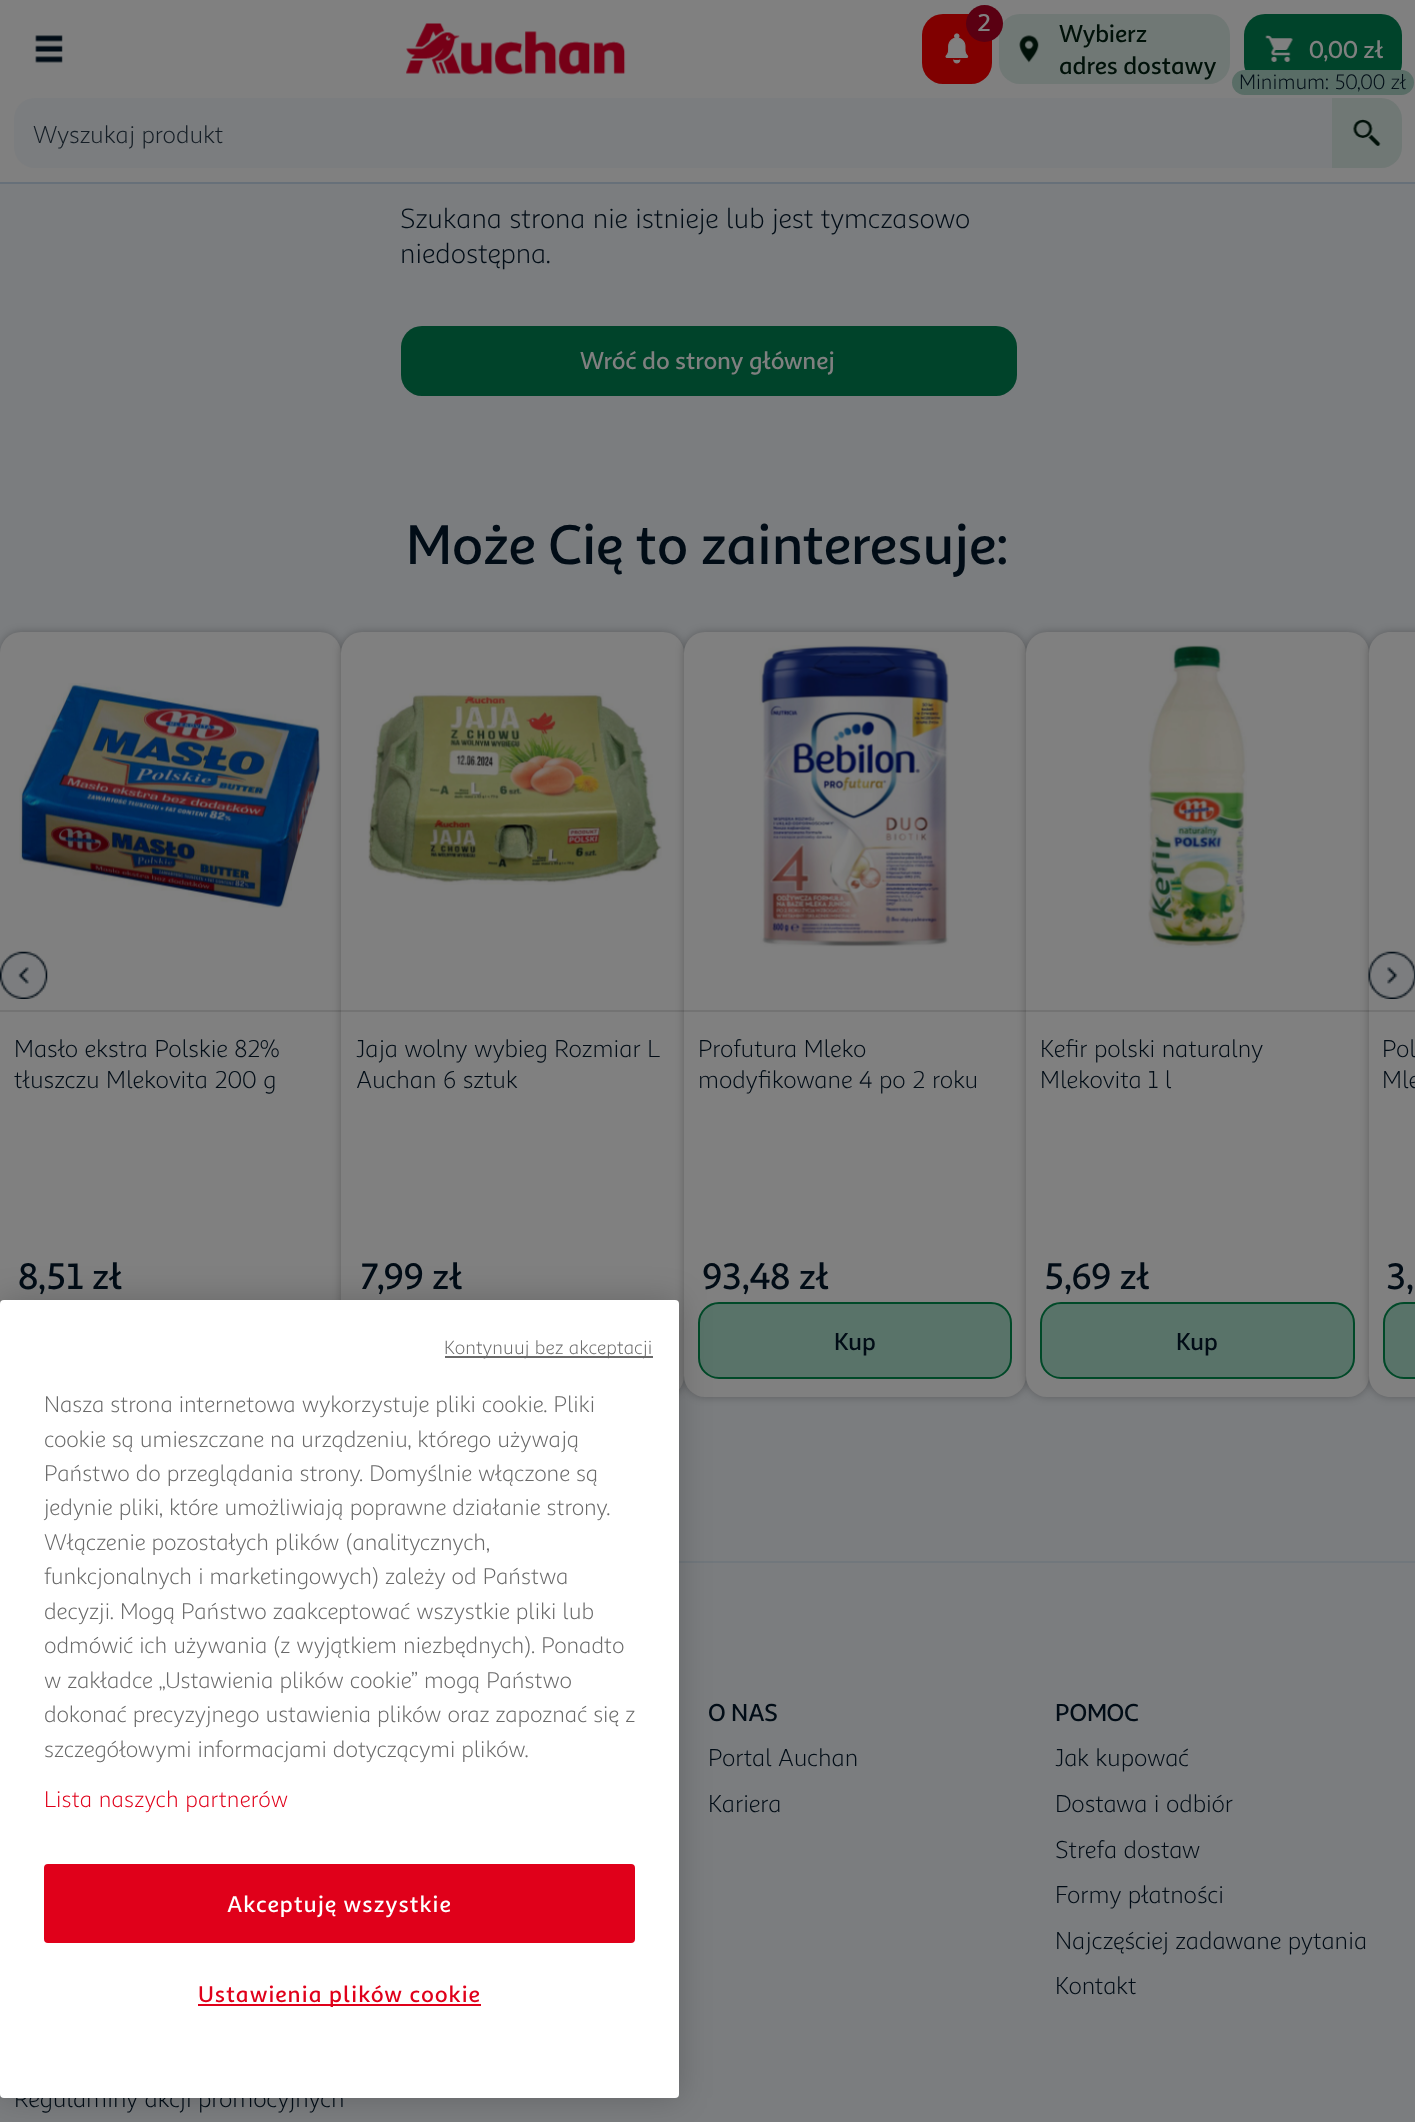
async function draw(canvas) {
  canvas.width = 1415
  canvas.height = 2122
  const ctx = canvas.getContext('2d')
  ctx.miterLimit = 4
  ctx.fontKerning = 'normal'
  async function loadImage(src) {
    const img = new Image()
    img.src = src
    await img.decode()
    return img
  }

  ctx.fillStyle = '#7b7d7f'
  ctx.fillRect(0, 0, 1415, 2122)
  ctx.fillStyle = '#677079'
  ctx.fillRect(0, 182, 1415, 2)
  ctx.fillStyle = '#808080'
  ctx.fillRect(0, 0, 1415, 182)
  ctx.drawImage(await loadImage('image0.png'), 406, 23, 220, 52)
  ctx.fillStyle = '#800000'
  ctx.beginPath()
  ctx.roundRect(922, 14, 70, 70, 21)
  ctx.fill()
  ctx.drawImage(await loadImage('image1.png'), 945, 33, 24, 31)
  ctx.fillStyle = '#707875'
  ctx.beginPath()
  ctx.roundRect(999, 14, 231, 70, 21)
  ctx.fill()
  ctx.fillStyle = '#5a0012'
  ctx.beginPath()
  ctx.arc(984.5, 23.5, 18.5, 0, 2 * Math.PI)
  ctx.fill()
  ctx.font = '500 24.5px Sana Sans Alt'
  ctx.fillStyle = '#808080'
  ctx.fillText('2', 977, 31)
  ctx.drawImage(await loadImage('image2.png'), 1019, 35, 20, 28)
  ctx.fillStyle = '#001109'
  ctx.fillText('Wybierz', 1059, 42)
  ctx.fillText('adres dostawy', 1059, 74)
  ctx.fillStyle = '#00432a'
  ctx.beginPath()
  ctx.roundRect(1244, 14, 158, 70, 21)
  ctx.fill()
  ctx.drawImage(await loadImage('image3.png'), 1265, 35, 28, 27)
  ctx.fillStyle = '#808080'
  ctx.fillText('0,00 zł', 1309, 58)
  ctx.fillStyle = '#596d66'
  ctx.beginPath()
  ctx.roundRect(1232, 70, 182, 25, 12.5)
  ctx.fill()
  ctx.font = '21px Sana Sans Alt'
  ctx.fillStyle = '#010c16'
  ctx.fillText('Minimum: 50,00 zł', 1239, 89)
  ctx.fillStyle = '#7b7d7f'
  ctx.beginPath()
  ctx.roundRect(14, 98, 1318, 70, [21, 0, 0, 21])
  ctx.fill()
  ctx.font = '24.5px Sana Sans Alt'
  ctx.fillStyle = '#141d25'
  ctx.fillText('Wyszukaj produkt', 33, 143)
  ctx.fillStyle = '#707875'
  ctx.beginPath()
  ctx.roundRect(1332, 98, 70, 70, [0, 21, 21, 0])
  ctx.fill()
  ctx.drawImage(await loadImage('image4.png'), 1353, 119, 28, 27)
  ctx.drawImage(await loadImage('image5.png'), 35, 35, 28, 28)
  ctx.font = '28px Sana Sans Alt'
  ctx.fillStyle = '#010c16'
  ctx.fillText('Szukana strona nie istnieje lub jest tymczasowo', 400, 228)
  ctx.fillText('niedostępna.', 400, 263)
  ctx.fillStyle = '#00432a'
  ctx.beginPath()
  ctx.roundRect(401, 326, 616, 70, 21)
  ctx.fill()
  ctx.font = '500 24.5px Sana Sans Alt'
  ctx.fillStyle = '#808080'
  ctx.fillText('Wróć do strony głównej', 580, 369)
  ctx.font = '500 56px Sana Sans Alt'
  ctx.fillStyle = '#010c16'
  ctx.fillText('Może Cię to zainteresuje:', 406, 564)
  ctx.fillStyle = '#00000040'
  ctx.filter = 'blur(4.5px)'
  ctx.beginPath()
  ctx.roundRect(0, 632, 341, 765, 21)
  ctx.fill()
  ctx.filter = 'none'
  ctx.fillStyle = '#808080'
  ctx.beginPath()
  ctx.roundRect(0, 632, 341, 765, 21)
  ctx.fill()
  ctx.drawImage(await loadImage('image6.png'), 0, 951, 48, 48)
  ctx.fillStyle = '#737373'
  ctx.fillRect(0, 1010, 341, 2)
  ctx.fillStyle = '#00000040'
  ctx.filter = 'blur(4.5px)'
  ctx.beginPath()
  ctx.roundRect(341, 632, 343, 765, 21)
  ctx.fill()
  ctx.filter = 'none'
  ctx.fillStyle = '#808080'
  ctx.beginPath()
  ctx.roundRect(341, 632, 343, 765, 21)
  ctx.fill()
  ctx.fillStyle = '#737373'
  ctx.fillRect(341, 1010, 343, 2)
  ctx.fillStyle = '#00000040'
  ctx.filter = 'blur(4.5px)'
  ctx.beginPath()
  ctx.roundRect(684, 632, 342, 765, 21)
  ctx.fill()
  ctx.filter = 'none'
  ctx.fillStyle = '#808080'
  ctx.beginPath()
  ctx.roundRect(684, 632, 342, 765, 21)
  ctx.fill()
  ctx.fillStyle = '#737373'
  ctx.fillRect(684, 1010, 342, 2)
  ctx.fillStyle = '#597369'
  ctx.beginPath()
  ctx.roundRect(699, 1303, 312, 75, 20)
  ctx.fill()
  ctx.strokeStyle = '#004928'
  ctx.lineWidth = 2
  ctx.stroke()
  ctx.fillStyle = '#00000040'
  ctx.filter = 'blur(4.5px)'
  ctx.beginPath()
  ctx.roundRect(1026, 632, 343, 765, 21)
  ctx.fill()
  ctx.filter = 'none'
  ctx.fillStyle = '#808080'
  ctx.beginPath()
  ctx.roundRect(1026, 632, 343, 765, 21)
  ctx.fill()
  ctx.fillStyle = '#737373'
  ctx.fillRect(1026, 1010, 343, 2)
  ctx.fillStyle = '#597369'
  ctx.beginPath()
  ctx.roundRect(1041, 1303, 313, 75, 20)
  ctx.fill()
  ctx.stroke()
  ctx.fillStyle = '#00000040'
  ctx.filter = 'blur(4.5px)'
  ctx.beginPath()
  ctx.roundRect(1369, 632, 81, 765, 21)
  ctx.fill()
  ctx.filter = 'none'
  ctx.fillStyle = '#808080'
  ctx.beginPath()
  ctx.moveTo(1390, 632)
  ctx.lineTo(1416, 632)
  ctx.lineTo(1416, 1397)
  ctx.lineTo(1390, 1397)
  ctx.bezierCurveTo(1378.5, 1397, 1369, 1387.5, 1369, 1376)
  ctx.lineTo(1369, 653)
  ctx.bezierCurveTo(1369, 641.5, 1378.5, 632, 1390, 632)
  ctx.closePath()
  ctx.fill()
  ctx.drawImage(await loadImage('image7.png'), 1368, 951, 47, 48)
  ctx.drawImage(await loadImage('image8.png'), 19, 683, 302, 225)
  ctx.font = '24.5px Sana Sans Alt'
  ctx.fillStyle = '#010c16'
  ctx.fillText('Masło ekstra Polskie 82%', 14, 1057)
  ctx.fillText('tłuszczu Mlekovita 200 g', 14, 1088)
  ctx.font = '500 37px Sana Sans Alt'
  ctx.fillText('8,51 zł', 18, 1289)
  ctx.drawImage(await loadImage('image9.png'), 368, 693, 294, 192)
  ctx.font = '24.5px Sana Sans Alt'
  ctx.fillText('Jaja wolny wybieg Rozmiar L', 356, 1057)
  ctx.fillText('Auchan 6 sztuk', 356, 1088)
  ctx.font = '500 37px Sana Sans Alt'
  ctx.fillText('7,99 zł', 360, 1289)
  ctx.drawImage(await loadImage('image10.png'), 759, 645, 190, 302)
  ctx.font = '24.5px Sana Sans Alt'
  ctx.fillText('Profutura Mleko', 698, 1057)
  ctx.fillText('modyfikowane 4 po 2 roku', 698, 1088)
  ctx.font = '500 37px Sana Sans Alt'
  ctx.fillText('93,48 zł', 702, 1289)
  ctx.font = '500 24.5px Sana Sans Alt'
  ctx.fillText('Kup', 834, 1350)
  ctx.drawImage(await loadImage('image11.png'), 1148, 645, 99, 303)
  ctx.font = '24.5px Sana Sans Alt'
  ctx.fillText('Kefir polski naturalny', 1040, 1057)
  ctx.fillText('Mlekovita 1 l', 1040, 1088)
  ctx.font = '500 37px Sana Sans Alt'
  ctx.fillText('5,69 zł', 1044, 1289)
  ctx.font = '500 24.5px Sana Sans Alt'
  ctx.fillText('Kup', 1176, 1350)
  ctx.fillStyle = '#737373'
  ctx.fillRect(1369, 1010, 46, 2)
  ctx.font = '24.5px Sana Sans Alt'
  ctx.fillStyle = '#010c16'
  ctx.fillText('Pol', 1382, 1057)
  ctx.fillText('Mle', 1382, 1088)
  ctx.font = '500 37px Sana Sans Alt'
  ctx.fillText('3,', 1386, 1289)
  ctx.fillStyle = '#597369'
  ctx.beginPath()
  ctx.moveTo(1404, 1302)
  ctx.lineTo(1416, 1302)
  ctx.lineTo(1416, 1379)
  ctx.lineTo(1404, 1379)
  ctx.bezierCurveTo(1392.5, 1379, 1383, 1369.5, 1383, 1358)
  ctx.lineTo(1383, 1323)
  ctx.bezierCurveTo(1383, 1311.5, 1392.5, 1302, 1404, 1302)
  ctx.closePath()
  ctx.fill()
  ctx.beginPath()
  ctx.roundRect(1384, 1303, 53, 75, 20)
  ctx.stroke()
  ctx.fillStyle = '#71777c'
  ctx.fillRect(679, 1561, 736, 2)
  ctx.font = '500 24.5px Sana Sans Alt'
  ctx.fillStyle = '#010c16'
  ctx.fillText('O NAS', 708, 1721)
  ctx.font = '24.5px Sana Sans Alt'
  ctx.fillText('Portal Auchan', 708, 1766)
  ctx.fillText('Kariera', 708, 1812)
  ctx.font = '500 24.5px Sana Sans Alt'
  ctx.fillText('POMOC', 1055, 1721)
  ctx.font = '24.5px Sana Sans Alt'
  ctx.fillText('Jak kupować', 1055, 1766)
  ctx.fillText('Dostawa i odbiór', 1055, 1812)
  ctx.fillText('Strefa dostaw', 1055, 1858)
  ctx.fillText('Formy płatności', 1055, 1903)
  ctx.fillText('Najczęściej zadawane pytania', 1055, 1949)
  ctx.fillText('Kontakt', 1055, 1994)
  ctx.fillText('Regulaminy akcji promocyjnych', 14, 2107)
  ctx.fillStyle = '#00000033'
  ctx.filter = 'blur(16px)'
  ctx.beginPath()
  ctx.roundRect(0, 1300, 679, 798, 4)
  ctx.fill()
  ctx.filter = 'none'
  ctx.fillStyle = '#fff'
  ctx.beginPath()
  ctx.roundRect(0, 1300, 679, 798, 4)
  ctx.fill()
  ctx.fillStyle = '#696969'
  ctx.fillRect(445, 1356, 208, 2)
  ctx.letterSpacing = '0.2px'
  ctx.font = '19.25px Sana Sans Alt'
  ctx.fillText('Kontynuuj bez akceptacji', 444, 1354)
  ctx.letterSpacing = '0px'
  ctx.font = '22.95px Sana Sans Alt'
  ctx.fillText('Nasza strona internetowa wykorzystuje pliki cookie. Pliki', 44, 1412)
  ctx.fillText('cookie są umieszczane na urządzeniu, którego używają', 44, 1447)
  ctx.fillText('Państwo do przeglądania strony. Domyślnie włączone są', 44, 1481)
  ctx.fillText('jedynie pliki, które umożliwiają poprawne działanie strony.', 44, 1515)
  ctx.fillText('Włączenie pozostałych plików (analitycznych,', 44, 1550)
  ctx.fillText('funkcjonalnych i marketingowych) zależy od Państwa', 44, 1584)
  ctx.fillText('decyzji. Mogą Państwo zaakceptować wszystkie pliki lub', 44, 1619)
  ctx.fillText('odmówić ich używania (z wyjątkiem niezbędnych). Ponadto', 44, 1653)
  ctx.fillText('w zakładce „Ustawienia plików cookie” mogą Państwo', 44, 1688)
  ctx.fillText('dokonać precyzyjnego ustawienia plików oraz zapoznać się z', 44, 1722)
  ctx.fillText('szczegółowymi informacjami dotyczącymi plików.', 44, 1757)
  ctx.letterSpacing = '0.25px'
  ctx.fillStyle = '#e0001a'
  ctx.fillText('Lista naszych partnerów', 44, 1807)
  ctx.beginPath()
  ctx.roundRect(45, 1865, 589, 77, 3)
  ctx.fill()
  ctx.strokeStyle = '#e0001a'
  ctx.stroke()
  ctx.letterSpacing = '1.15px'
  ctx.font = '500 22.95px Sana Sans Alt'
  ctx.fillStyle = '#fff'
  ctx.fillText('Akceptuję wszystkie', 227, 1912)
  ctx.fillStyle = '#e0001a'
  ctx.fillRect(198, 2004, 283, 2)
  ctx.fillText('Ustawienia plików cookie', 198, 2002)
}

draw(document.querySelector('canvas'))
